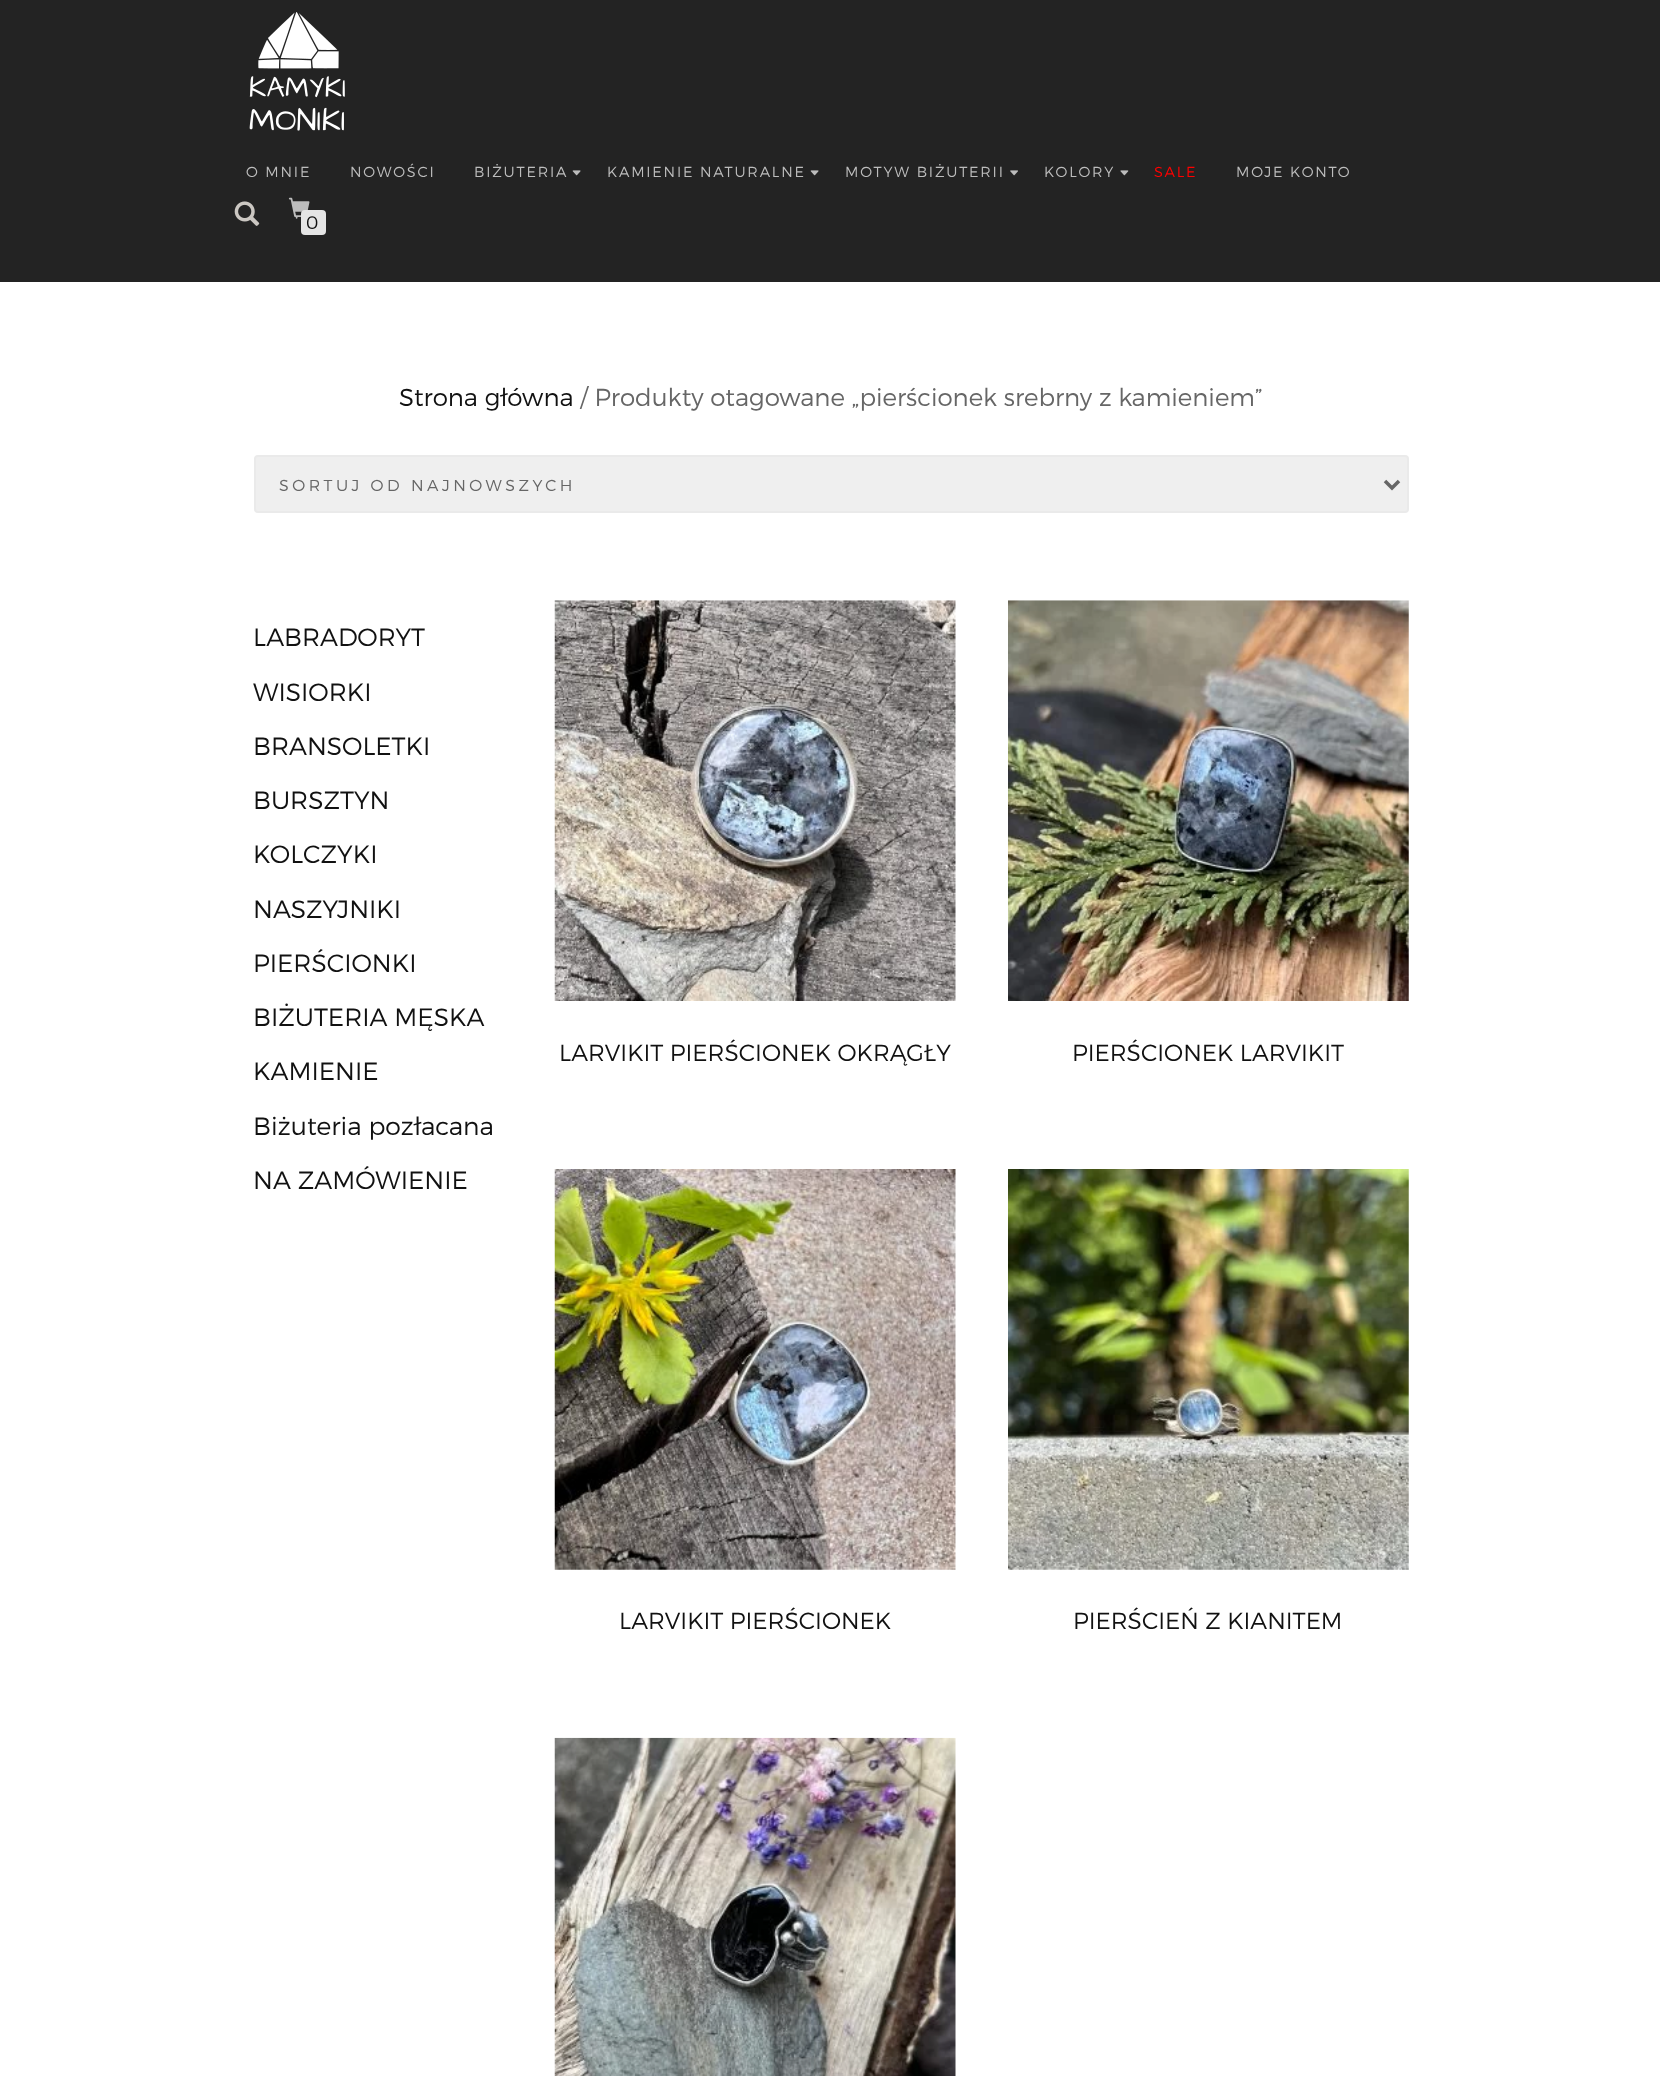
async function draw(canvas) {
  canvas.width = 1660
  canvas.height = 2076
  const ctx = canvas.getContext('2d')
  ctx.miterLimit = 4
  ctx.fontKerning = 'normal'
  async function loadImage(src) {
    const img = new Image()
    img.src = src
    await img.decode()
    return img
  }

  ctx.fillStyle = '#fff'
  ctx.fillRect(0, 0, 1660, 2076)
  ctx.fillStyle = '#232323'
  ctx.fillRect(0, 0, 1660, 282)
  ctx.drawImage(await loadImage('image0.png'), 249, 12, 96, 119)
  ctx.letterSpacing = '1.8px'
  ctx.font = '300 14.5px Montserrat'
  ctx.fillStyle = '#bdbdbd'
  ctx.fillText('O MNIE', 246, 177)
  ctx.fillText('NOWOŚCI', 350, 177)
  ctx.fillText('BIŻUTERIA', 474, 177)
  ctx.drawImage(await loadImage('image1.png'), 572, 170, 9, 6)
  ctx.fillText('KAMIENIE NATURALNE', 607, 177)
  ctx.drawImage(await loadImage('image1.png'), 810, 170, 9, 6)
  ctx.fillText('MOTYW BIŻUTERII', 845, 177)
  ctx.drawImage(await loadImage('image2.png'), 1010, 170, 8, 6)
  ctx.fillText('KOLORY', 1044, 177)
  ctx.drawImage(await loadImage('image3.png'), 1120, 170, 9, 6)
  ctx.fillStyle = '#f00'
  ctx.fillText('SALE', 1154, 177)
  ctx.fillStyle = '#bdbdbd'
  ctx.fillText('MOJE KONTO', 1236, 177)
  ctx.drawImage(await loadImage('image4.png'), 234, 201, 26, 25)
  ctx.drawImage(await loadImage('image5.png'), 288, 197, 22, 22)
  ctx.fillStyle = '#e5e5e5'
  ctx.beginPath()
  ctx.roundRect(301, 210, 25, 25, 4)
  ctx.fill()
  ctx.letterSpacing = '0px'
  ctx.font = '300 18px Montserrat'
  ctx.fillStyle = '#111'
  ctx.fillText('0', 306, 229)
  ctx.font = '300 24.5px Montserrat'
  ctx.fillText('Strona główna', 399, 406)
  ctx.fillStyle = '#666'
  ctx.fillText('/ Produkty otagowane „pierścionek srebrny z kamieniem”', 580, 406)
  ctx.fillStyle = '#efefef'
  ctx.beginPath()
  ctx.roundRect(255, 456, 1153, 56, 3)
  ctx.fill()
  ctx.strokeStyle = '#eaeaea'
  ctx.lineWidth = 2
  ctx.stroke()
  ctx.beginPath()
  ctx.moveTo(1385, 481)
  ctx.lineTo(1392, 488)
  ctx.lineTo(1399, 481)
  ctx.strokeStyle = '#666'
  ctx.lineWidth = 3.5
  ctx.stroke()
  ctx.letterSpacing = '3.5px'
  ctx.font = '300 15.9px Montserrat'
  ctx.fillStyle = '#666'
  ctx.fillText('SORTUJ OD NAJNOWSZYCH', 279, 491)
  ctx.letterSpacing = '0px'
  ctx.font = '300 25px Montserrat'
  ctx.fillStyle = '#111'
  ctx.fillText('LABRADORYT', 253, 646)
  ctx.fillText('WISIORKI', 253, 701)
  ctx.fillText('BRANSOLETKI', 253, 755)
  ctx.fillText('BURSZTYN', 253, 809)
  ctx.fillText('KOLCZYKI', 253, 863)
  ctx.fillText('NASZYJNIKI', 253, 918)
  ctx.fillText('PIERŚCIONKI', 253, 972)
  ctx.fillText('BIŻUTERIA MĘSKA', 253, 1026)
  ctx.fillText('KAMIENIE', 253, 1080)
  ctx.fillText('Biżuteria pozłacana', 253, 1135)
  ctx.fillText('NA ZAMÓWIENIE', 253, 1189)
  ctx.drawImage(await loadImage('image6.png'), 554, 600, 402, 401)
  ctx.font = '300 23.4px Montserrat'
  ctx.fillText('LARVIKIT PIERŚCIONEK OKRĄGŁY', 559, 1061)
  ctx.drawImage(await loadImage('image7.png'), 1008, 600, 401, 401)
  ctx.fillText('PIERŚCIONEK LARVIKIT', 1072, 1061)
  ctx.drawImage(await loadImage('image8.png'), 554, 1169, 402, 401)
  ctx.fillText('LARVIKIT PIERŚCIONEK', 619, 1629)
  ctx.drawImage(await loadImage('image9.png'), 1008, 1169, 401, 401)
  ctx.fillText('PIERŚCIEŃ Z KIANITEM', 1073, 1629)
  ctx.drawImage(await loadImage('image10.png'), 554, 1737, 402, 339)
}

draw(document.querySelector('canvas'))
